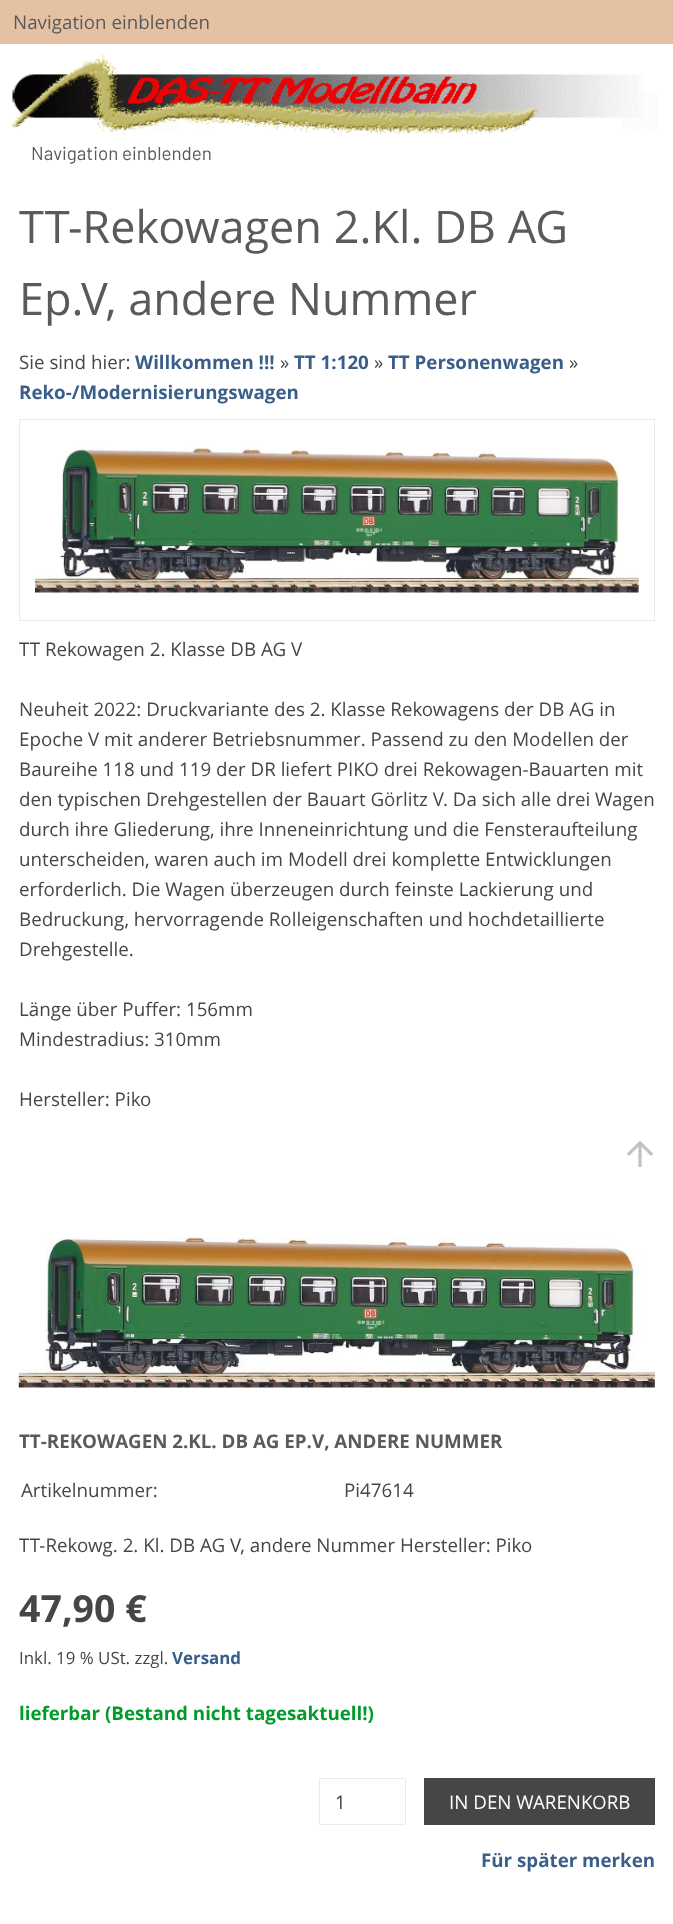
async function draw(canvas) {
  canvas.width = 673
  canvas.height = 1924
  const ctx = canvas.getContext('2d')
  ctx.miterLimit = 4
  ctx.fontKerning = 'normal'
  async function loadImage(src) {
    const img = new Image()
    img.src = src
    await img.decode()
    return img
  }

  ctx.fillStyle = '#fff'
  ctx.fillRect(0, 0, 673, 1924)
  ctx.fillStyle = '#e5c1a3'
  ctx.fillRect(0, 0, 673, 44)
  ctx.font = '18.75px Open Sans'
  ctx.fillStyle = '#5a5a5a'
  ctx.fillText('Navigation einblenden', 13, 29)
  ctx.drawImage(await loadImage('image0.png'), 12, 55, 646, 79)
  ctx.font = '18.75px Barlow'
  ctx.fillText('Navigation einblenden', 31, 160)
  ctx.font = '45px Open Sans'
  ctx.fillText('TT-Rekowagen 2.Kl. DB AG', 19, 243)
  ctx.fillText('Ep.V, andere Nummer', 19, 315)
  ctx.font = '18.75px Open Sans'
  ctx.fillStyle = '#464646'
  ctx.fillText('Sie sind hier:', 19, 369)
  ctx.font = 'bold 18.75px Open Sans'
  ctx.fillStyle = '#395e8a'
  ctx.fillText('Willkommen !!!', 135, 369)
  ctx.font = '18.75px Open Sans'
  ctx.fillStyle = '#464646'
  ctx.fillText('»', 280, 369)
  ctx.font = 'bold 18.75px Open Sans'
  ctx.fillStyle = '#395e8a'
  ctx.fillText('TT 1:120', 294, 369)
  ctx.font = '18.75px Open Sans'
  ctx.fillStyle = '#464646'
  ctx.fillText('»', 374, 369)
  ctx.font = 'bold 18.75px Open Sans'
  ctx.fillStyle = '#395e8a'
  ctx.fillText('TT Personenwagen', 388, 369)
  ctx.font = '18.75px Open Sans'
  ctx.fillStyle = '#464646'
  ctx.fillText('»', 569, 369)
  ctx.font = 'bold 18.75px Open Sans'
  ctx.fillStyle = '#395e8a'
  ctx.fillText('Reko-/Modernisierungswagen', 19, 399)
  ctx.strokeStyle = '#ebebeb'
  ctx.strokeRect(19.5, 419.5, 635, 201)
  ctx.drawImage(await loadImage('image1.png'), 35, 446, 604, 147)
  ctx.font = '18.75px Open Sans'
  ctx.fillStyle = '#464646'
  ctx.fillText('TT Rekowagen 2. Klasse DB AG V', 19, 656)
  ctx.fillText('Neuheit 2022: Druckvariante des 2. Klasse Rekowagens der DB AG in', 19, 716)
  ctx.fillText('Epoche V mit anderer Betriebsnummer. Passend zu den Modellen der', 19, 746)
  ctx.fillText('Baureihe 118 und 119 der DR liefert PIKO drei Rekowagen-Bauarten mit', 19, 776)
  ctx.fillText('den typischen Drehgestellen der Bauart Görlitz V. Da sich alle drei Wagen', 19, 806)
  ctx.fillText('durch ihre Gliederung, ihre Inneneinrichtung und die Fensteraufteilung', 19, 836)
  ctx.fillText('unterscheiden, waren auch im Modell drei komplette Entwicklungen', 19, 866)
  ctx.fillText('erforderlich. Die Wagen überzeugen durch feinste Lackierung und', 19, 896)
  ctx.fillText('Bedruckung, hervorragende Rolleigenschaften und hochdetaillierte', 19, 926)
  ctx.fillText('Drehgestelle.', 19, 956)
  ctx.fillText('Länge über Puffer: 156mm', 19, 1016)
  ctx.fillText('Mindestradius: 310mm', 19, 1046)
  ctx.fillText('Hersteller: Piko', 19, 1106)
  ctx.drawImage(await loadImage('image2.png'), 626, 1140, 28, 27)
  ctx.drawImage(await loadImage('image3.png'), 18, 1237, 637, 151)
  ctx.font = 'bold 18.75px Open Sans'
  ctx.fillStyle = '#5a5a5a'
  ctx.fillText('TT-REKOWAGEN 2.KL. DB AG EP.V, ANDERE NUMMER', 19, 1448)
  ctx.font = '18.75px Open Sans'
  ctx.fillStyle = '#464646'
  ctx.fillText('Artikelnummer:', 21, 1497)
  ctx.fillText('Pi47614', 344, 1497)
  ctx.fillText('TT-Rekowg. 2. Kl. DB AG V, andere Nummer Hersteller: Piko', 19, 1552)
  ctx.font = 'bold 37.5px Open Sans'
  ctx.fillText('47,90 €', 19, 1622)
  ctx.font = '16.9px Open Sans'
  ctx.fillText('Inkl. 19 % USt. zzgl.', 19, 1664)
  ctx.font = 'bold 16.9px Open Sans'
  ctx.fillStyle = '#395e8a'
  ctx.fillText('Versand', 172, 1664)
  ctx.font = 'bold 18.75px Open Sans'
  ctx.fillStyle = '#029a29'
  ctx.fillText('lieferbar (Bestand nicht tagesaktuell!)', 19, 1720)
  ctx.strokeRect(319.5, 1778.5, 86, 46)
  ctx.font = '18.75px Open Sans'
  ctx.fillStyle = '#464646'
  ctx.fillText('1', 335, 1809)
  ctx.fillRect(424, 1778, 231, 47)
  ctx.fillStyle = '#fff'
  ctx.fillText('IN DEN WARENKORB', 449, 1809)
  ctx.font = 'bold 18.75px Open Sans'
  ctx.fillStyle = '#395e8a'
  ctx.fillText('Für später merken', 481, 1867)
}

draw(document.querySelector('canvas'))
